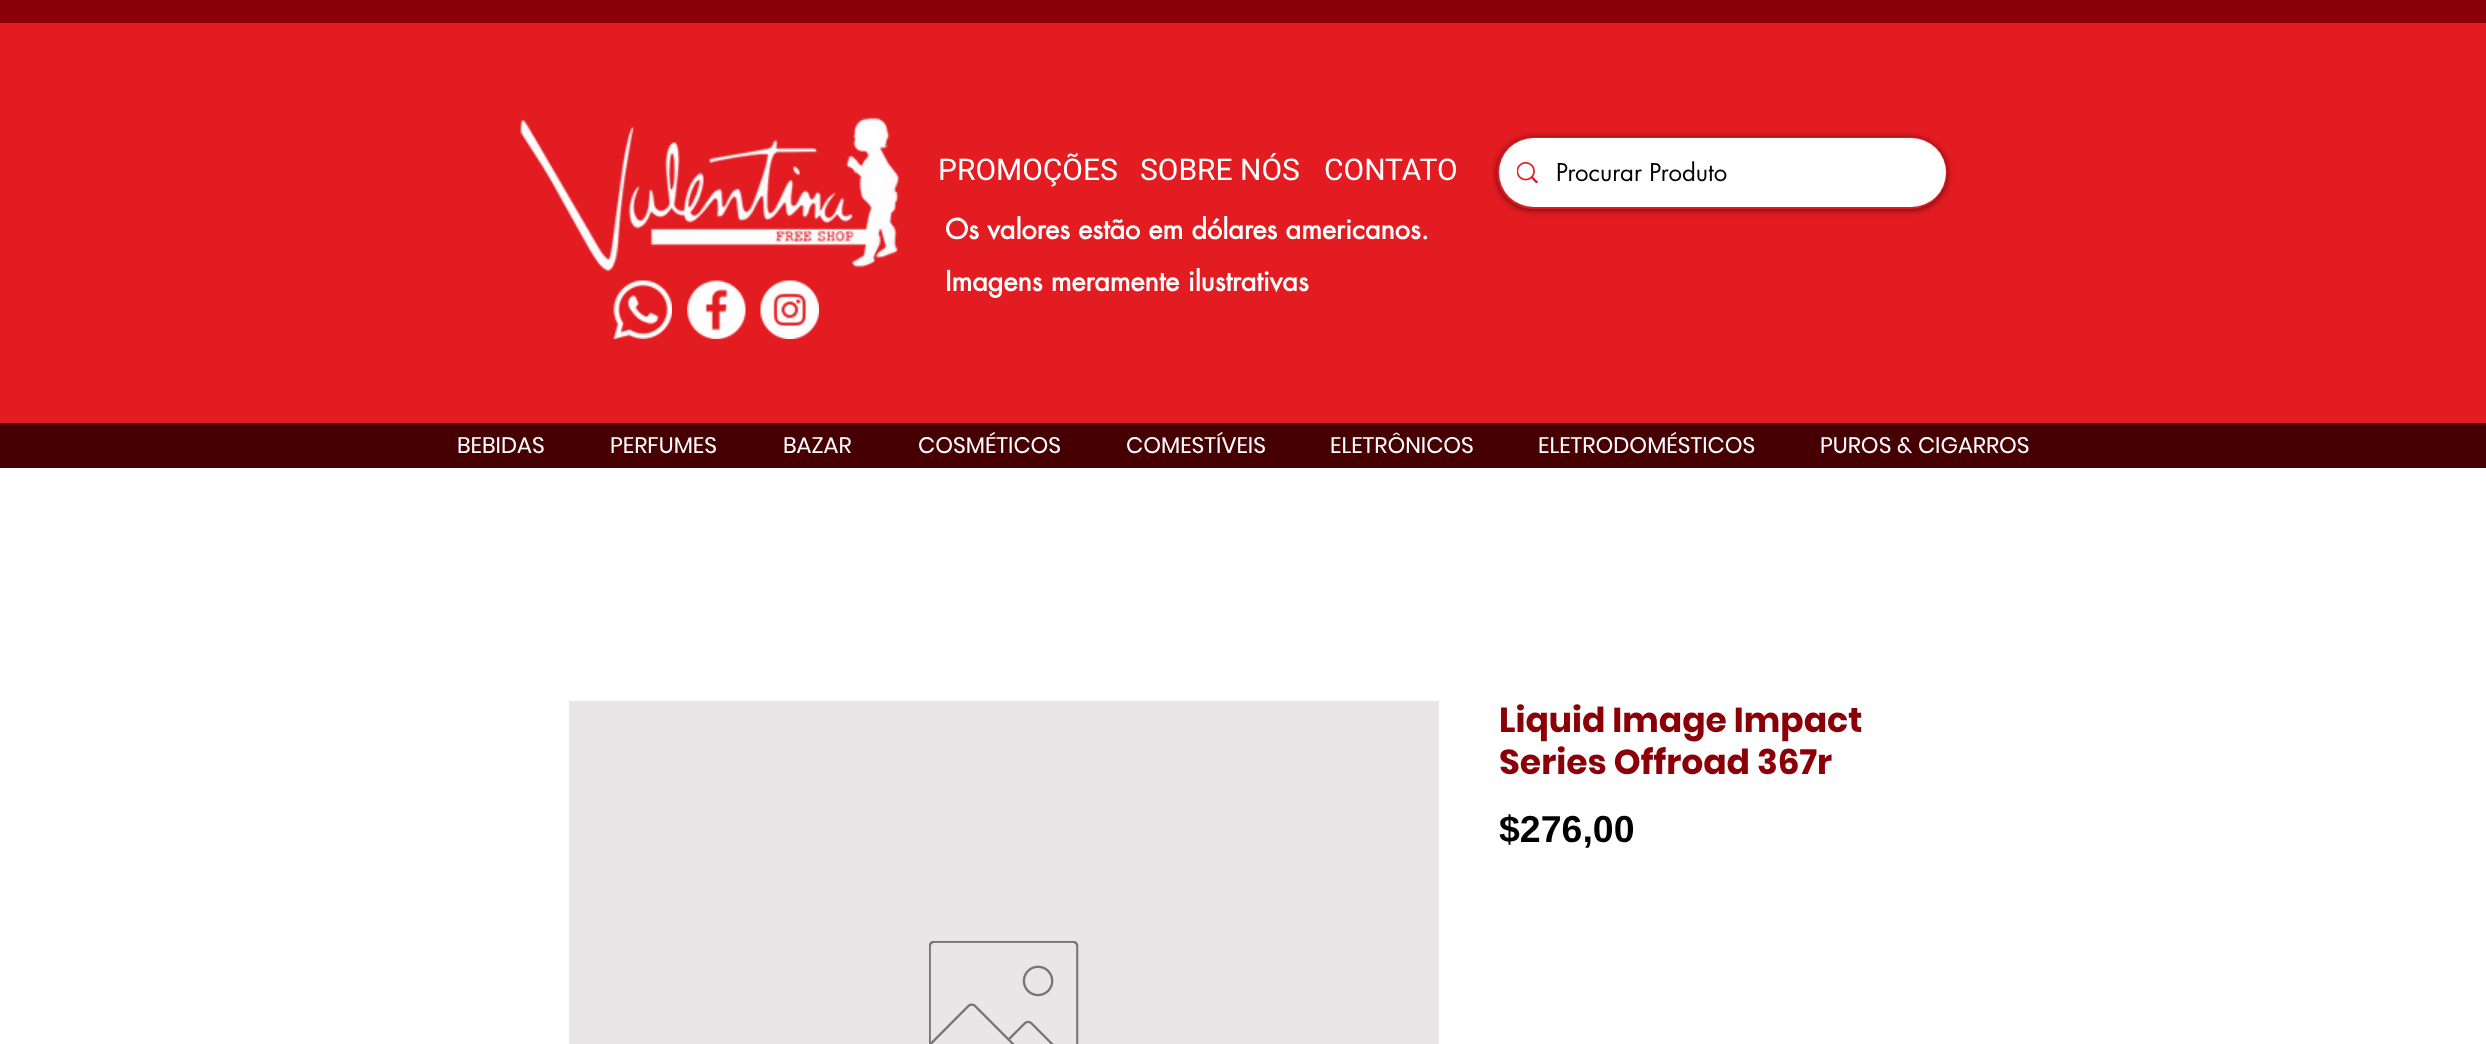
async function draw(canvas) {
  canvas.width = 2486
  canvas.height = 1044
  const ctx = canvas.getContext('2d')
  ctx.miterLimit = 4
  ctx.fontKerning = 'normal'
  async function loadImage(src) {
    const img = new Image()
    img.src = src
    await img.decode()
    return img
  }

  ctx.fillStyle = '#fff'
  ctx.fillRect(0, 0, 2486, 1044)
  ctx.fillStyle = '#e21c21'
  ctx.fillRect(0, 23, 2486, 400)
  ctx.font = '30px Roboto'
  ctx.fillStyle = '#fff'
  ctx.fillText('PROMOÇÕES', 938, 180)
  ctx.fillText('SOBRE NÓS', 1140, 180)
  ctx.fillText('CONTATO', 1324, 180)
  ctx.fillStyle = '#8b0007'
  ctx.fillRect(0, 0, 2486, 23)
  ctx.drawImage(await loadImage('image0.png'), 520, 117, 379, 155)
  ctx.fillStyle = '#00000099'
  ctx.filter = 'blur(3px)'
  ctx.beginPath()
  ctx.roundRect(1497, 138, 450, 72, 36)
  ctx.fill()
  ctx.filter = 'none'
  ctx.beginPath()
  ctx.roundRect(1498, 138, 448, 70, 35)
  ctx.strokeStyle = '#e21c21'
  ctx.lineWidth = 2
  ctx.stroke()
  ctx.fillStyle = '#fff'
  ctx.beginPath()
  ctx.roundRect(1499, 138, 447, 69, 34.5)
  ctx.fill()
  ctx.drawImage(await loadImage('image1.png'), 1517, 162, 21, 21)
  ctx.font = '24px futura'
  ctx.fillStyle = '#000'
  ctx.fillText('Procurar Produto', 1556, 181)
  ctx.font = 'bold 27px futura'
  ctx.fillStyle = '#fff'
  ctx.fillText('Os valores estão em dólares americanos.', 945, 239)
  ctx.drawImage(await loadImage('image2.png'), 613, 280, 59, 59)
  ctx.drawImage(await loadImage('image3.png'), 687, 280, 59, 59)
  ctx.drawImage(await loadImage('image4.png'), 760, 280, 59, 59)
  ctx.fillText('Imagens meramente ilustrativas', 945, 291)
  ctx.fillStyle = '#460003'
  ctx.fillRect(0, 423, 2486, 45)
  ctx.font = '22.5px Poppins'
  ctx.fillStyle = '#fff'
  ctx.fillText('BEBIDAS', 457, 453)
  ctx.fillText('PERFUMES', 610, 453)
  ctx.fillText('BAZAR', 783, 453)
  ctx.fillText('COSMÉTICOS', 918, 453)
  ctx.fillText('COMESTÍVEIS', 1126, 453)
  ctx.fillText('ELETRÔNICOS', 1330, 453)
  ctx.fillText('ELETRODOMÉSTICOS', 1538, 453)
  ctx.fillText('PUROS & CIGARROS', 1820, 453)
  ctx.fillStyle = '#e8e6e6'
  ctx.fillRect(569, 701, 870, 343)
  ctx.drawImage(await loadImage('image5.png'), 929, 941, 150, 103)
  ctx.font = 'bold 34.5px Poppins'
  ctx.fillStyle = '#8b0007'
  ctx.fillText('Liquid Image Impact', 1499, 732)
  ctx.fillText('Series Offroad 367r', 1499, 774)
  ctx.font = 'bold 37.5px Liberation Sans'
  ctx.fillStyle = '#000'
  ctx.fillText('$276,00', 1499, 842)
}

draw(document.querySelector('canvas'))
